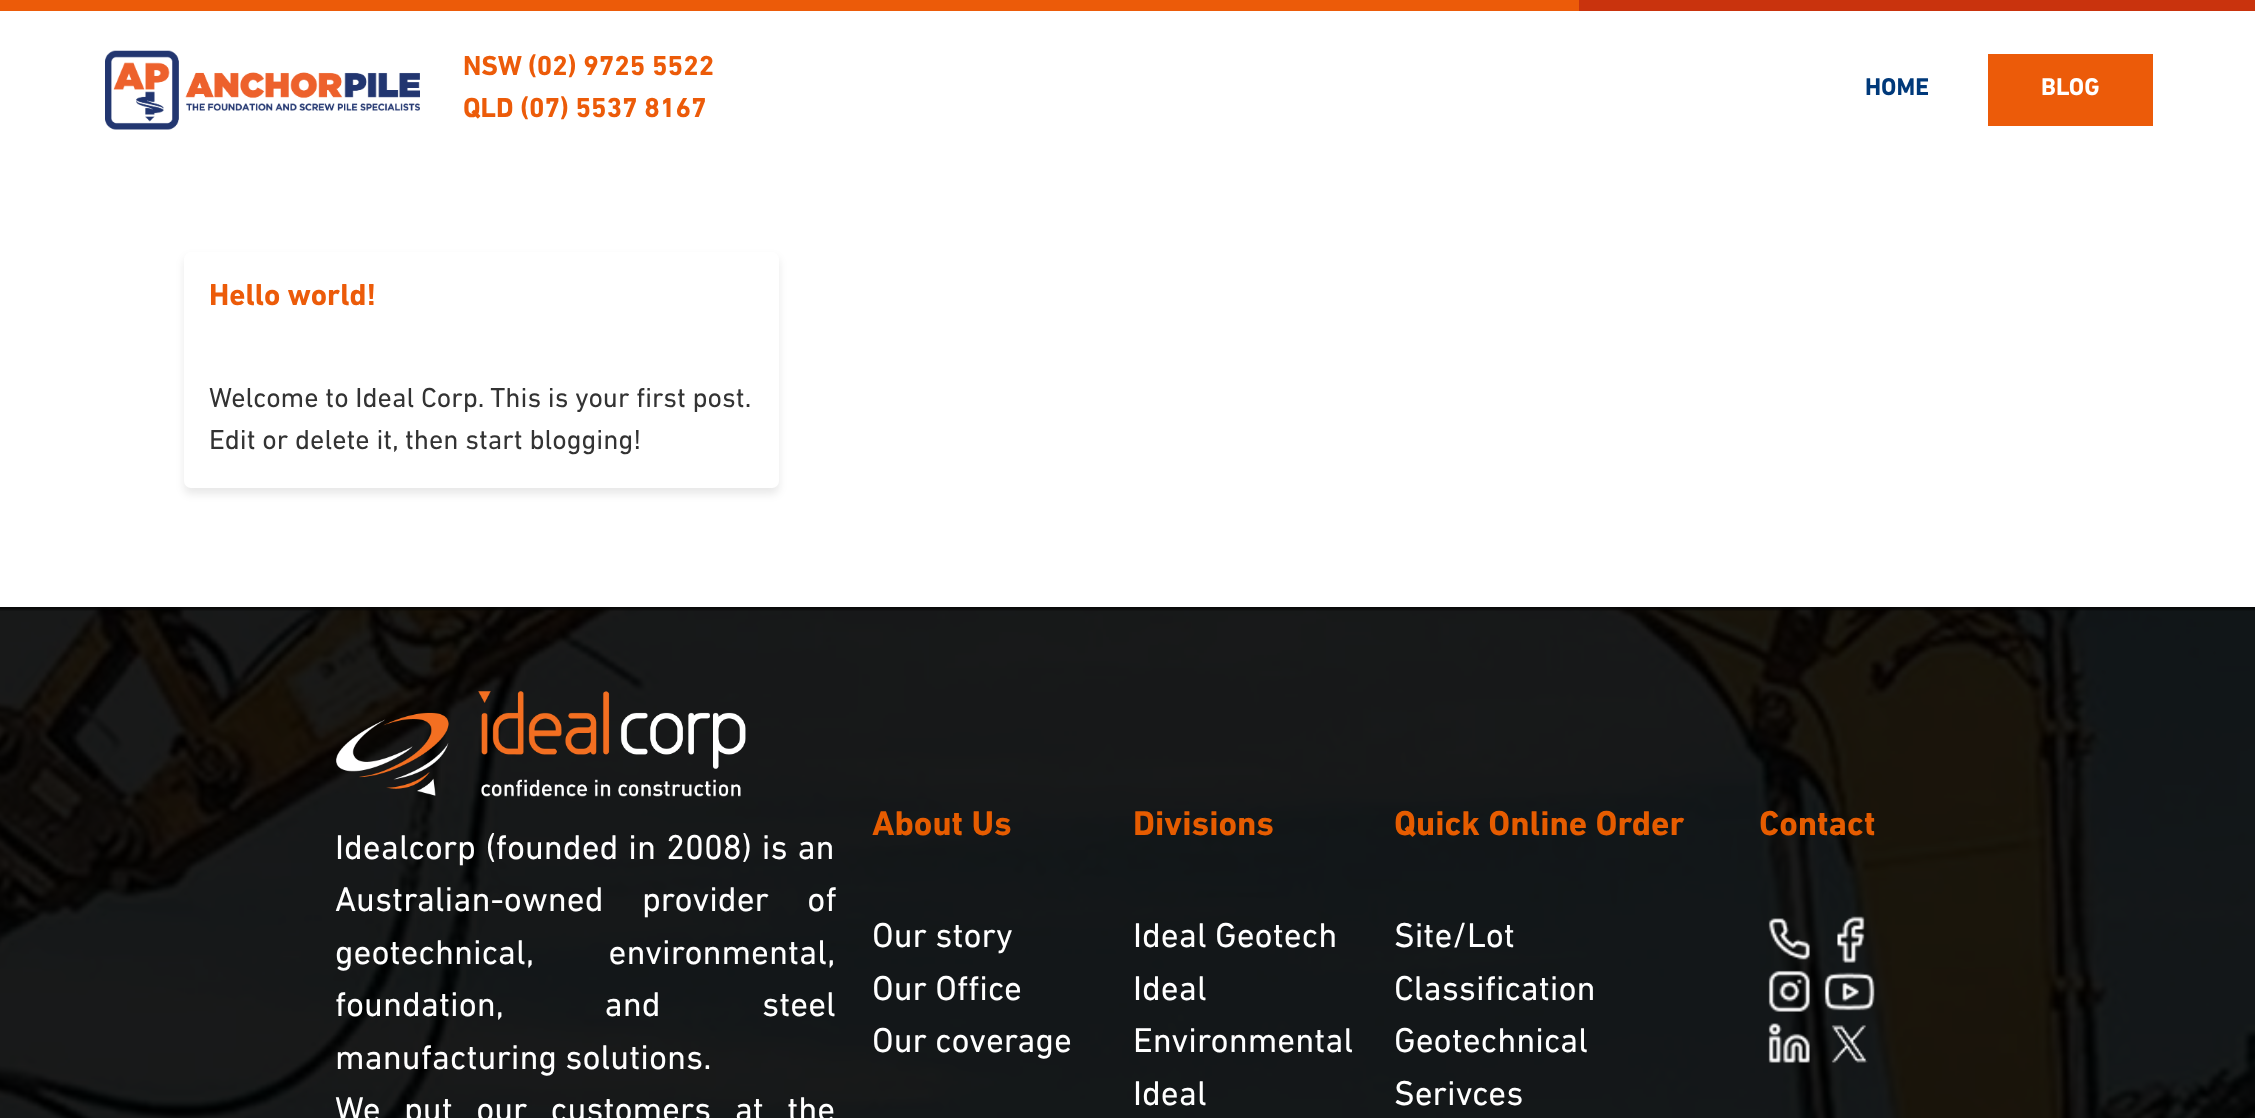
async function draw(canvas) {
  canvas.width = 2255
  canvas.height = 1118
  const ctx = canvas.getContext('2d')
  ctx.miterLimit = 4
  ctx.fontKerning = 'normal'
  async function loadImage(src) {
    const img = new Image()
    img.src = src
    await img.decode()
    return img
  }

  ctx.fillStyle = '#050505'
  ctx.fillRect(0, 0, 2255, 1118)
  ctx.fillStyle = '#ec5b09'
  ctx.fillRect(0, 0, 1579, 11)
  ctx.fillStyle = '#c9330d'
  ctx.fillRect(1579, 0, 676, 11)
  ctx.fillStyle = '#fff'
  ctx.fillRect(0, 11, 2255, 596)
  ctx.drawImage(await loadImage('image0.png'), 105, 50, 315, 80)
  ctx.font = 'bold 28px DIN Next'
  ctx.fillStyle = '#ec5b09'
  ctx.fillText('NSW (02) 9725 5522', 463, 75)
  ctx.fillText('QLD (07) 5537 8167', 463, 117)
  ctx.font = 'bold 24.5px DIN Next'
  ctx.fillStyle = '#00397a'
  ctx.fillText('HOME', 1865, 95)
  ctx.fillStyle = '#ec5b09'
  ctx.fillRect(1988, 54, 165, 72)
  ctx.fillStyle = '#fff'
  ctx.fillText('BLOG', 2041, 95)
  ctx.fillStyle = '#00000017'
  ctx.filter = 'blur(4.5px)'
  ctx.beginPath()
  ctx.roundRect(184, 257, 595, 237, 7)
  ctx.fill()
  ctx.filter = 'none'
  ctx.fillStyle = '#fff'
  ctx.beginPath()
  ctx.roundRect(184, 252, 595, 236, 7)
  ctx.fill()
  ctx.font = 'bold 30.75px DIN Next'
  ctx.fillStyle = '#ec5b09'
  ctx.fillText('Hello world!', 209, 305)
  ctx.font = '28px DIN Next'
  ctx.fillStyle = '#333'
  ctx.fillText('Welcome to Ideal Corp. This is your first post.', 209, 407)
  ctx.fillText('Edit or delete it, then start blogging!', 209, 449)
  ctx.drawImage(await loadImage('image1.png'), 0, 607, 2255, 511)
  ctx.drawImage(await loadImage('image2.png'), 336, 691, 410, 106)
  ctx.wordSpacing = '1.5px'
  ctx.font = '35px DIN Next'
  ctx.fillStyle = '#fff'
  ctx.fillText('Idealcorp (founded in 2008) is an', 335, 859)
  ctx.wordSpacing = '30px'
  ctx.fillText('Australian-owned provider of', 335, 911)
  ctx.wordSpacing = '67px'
  ctx.fillText('geotechnical, environmental,', 335, 964)
  ctx.wordSpacing = '93px'
  ctx.fillText('foundation, and steel', 335, 1016)
  ctx.wordSpacing = '0px'
  ctx.fillText('manufacturing solutions.', 335, 1069)
  ctx.wordSpacing = '15px'
  ctx.fillText('We put our customers at the', 335, 1121)
  ctx.wordSpacing = '0px'
  ctx.font = 'bold 35px DIN Next'
  ctx.fillStyle = '#e65c00'
  ctx.fillText('About Us', 872, 835)
  ctx.font = '35px DIN Next'
  ctx.fillStyle = '#fff'
  ctx.fillText('Our story', 872, 947)
  ctx.fillText('Our Office', 872, 1000)
  ctx.fillText('Our coverage', 872, 1052)
  ctx.font = 'bold 35px DIN Next'
  ctx.fillStyle = '#e65c00'
  ctx.fillText('Divisions', 1133, 835)
  ctx.font = '35px DIN Next'
  ctx.fillStyle = '#fff'
  ctx.fillText('Ideal Geotech', 1133, 947)
  ctx.fillText('Ideal', 1133, 1000)
  ctx.fillText('Environmental', 1133, 1052)
  ctx.fillText('Ideal', 1133, 1105)
  ctx.font = 'bold 35px DIN Next'
  ctx.fillStyle = '#e65c00'
  ctx.fillText('Quick Online Order', 1394, 835)
  ctx.font = '35px DIN Next'
  ctx.fillStyle = '#fff'
  ctx.fillText('Site/Lot', 1394, 947)
  ctx.fillText('Classification', 1394, 1000)
  ctx.fillText('Geotechnical', 1394, 1052)
  ctx.fillText('Serivces', 1394, 1105)
  ctx.font = 'bold 35px DIN Next'
  ctx.fillStyle = '#e65c00'
  ctx.fillText('Contact', 1759, 835)
  ctx.drawImage(await loadImage('image3.png'), 1768, 918, 42, 42)
  ctx.drawImage(await loadImage('image4.png'), 1837, 916, 28, 47)
  ctx.drawImage(await loadImage('image5.png'), 1768, 970, 42, 42)
  ctx.drawImage(await loadImage('image6.png'), 1824, 972, 51, 39)
  ctx.drawImage(await loadImage('image7.png'), 1768, 1023, 42, 40)
  ctx.drawImage(await loadImage('image8.png'), 1831, 1025, 37, 38)
}

draw(document.querySelector('canvas'))
